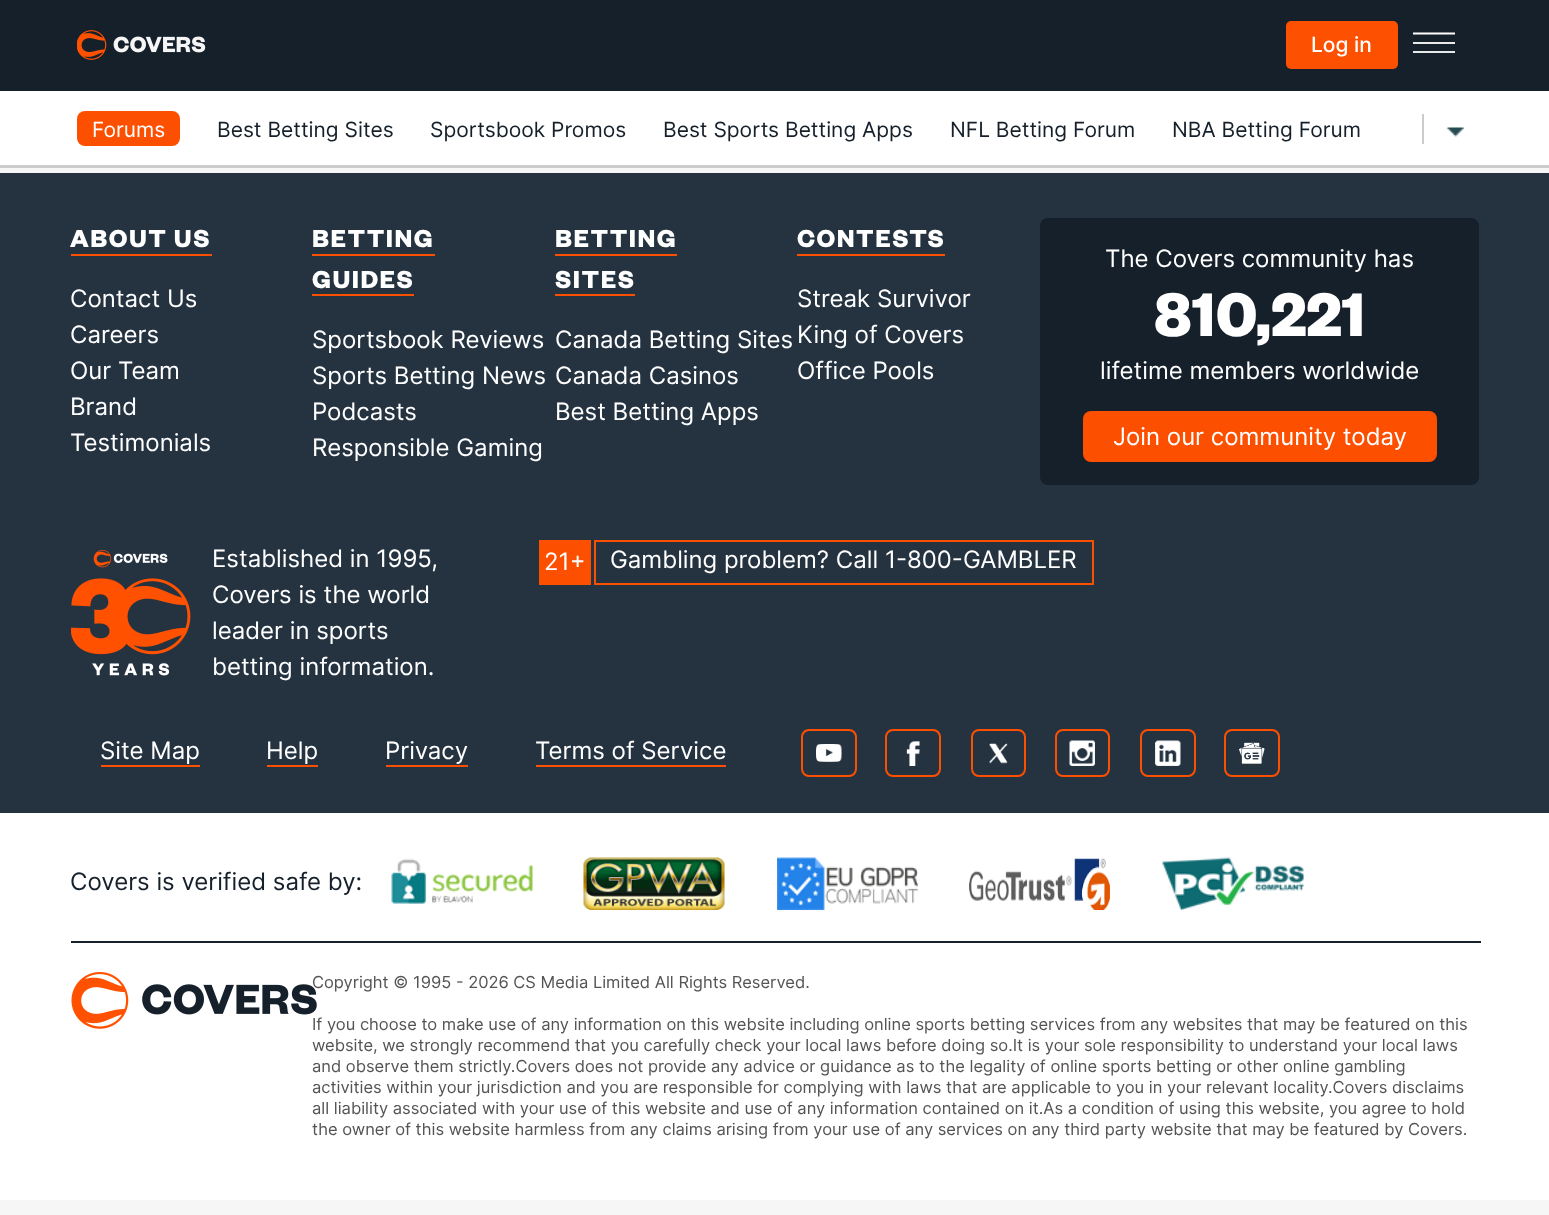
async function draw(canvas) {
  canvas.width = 1549
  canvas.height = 1215
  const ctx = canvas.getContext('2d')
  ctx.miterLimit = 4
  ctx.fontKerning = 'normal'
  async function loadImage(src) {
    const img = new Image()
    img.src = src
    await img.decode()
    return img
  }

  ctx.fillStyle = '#f6f6f6'
  ctx.fillRect(0, 0, 1549, 1215)
  ctx.fillStyle = '#15202b'
  ctx.fillRect(0, 0, 1549, 91)
  ctx.drawImage(await loadImage('image0.png'), 77, 30, 129, 30)
  ctx.fillStyle = '#fd5000'
  ctx.beginPath()
  ctx.roundRect(1286, 21, 112, 48, 5)
  ctx.fill()
  ctx.font = '500 21px Inter'
  ctx.fillStyle = '#fff'
  ctx.fillText('Log in', 1311, 52)
  ctx.save()
  ctx.beginPath()
  ctx.rect(1413, 32, 42, 21)
  ctx.clip()
  ctx.beginPath()
  ctx.moveTo(1413, 33.5)
  ctx.lineTo(1456, 33.5)
  ctx.strokeStyle = '#fff'
  ctx.lineWidth = 1.8
  ctx.stroke()
  ctx.restore()
  ctx.fillStyle = '#e8e9ea'
  ctx.fillRect(1413, 42, 42, 2)
  ctx.fillRect(1413, 51, 42, 2)
  ctx.fillStyle = '#fff'
  ctx.fillRect(0, 91, 1549, 74)
  ctx.fillStyle = '#ccc'
  ctx.fillRect(0, 165, 1549, 3)
  ctx.fillStyle = '#fd4f00'
  ctx.beginPath()
  ctx.roundRect(77, 111, 103, 35, 8)
  ctx.fill()
  ctx.font = '21px Inter'
  ctx.fillStyle = '#fff'
  ctx.fillText('Forums', 92, 137)
  ctx.fillStyle = '#15202b'
  ctx.fillText('Best Betting Sites', 217, 137)
  ctx.fillText('Sportsbook Promos', 430, 137)
  ctx.fillText('Best Sports Betting Apps', 663, 137)
  ctx.fillText('NFL Betting Forum', 950, 137)
  ctx.fillText('NBA Betting Forum', 1172, 137)
  ctx.fillStyle = '#ccc'
  ctx.fillRect(1422, 114, 2, 30)
  ctx.drawImage(await loadImage('image1.png'), 1446, 127, 18, 10)
  ctx.fillStyle = '#253341'
  ctx.fillRect(0, 173, 1549, 640)
  ctx.letterSpacing = '1.5px'
  ctx.font = 'bold 27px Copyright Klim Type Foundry'
  ctx.fillStyle = '#fff'
  ctx.fillText('ABOUT US', 70, 247)
  ctx.fillStyle = '#fd4f00'
  ctx.fillRect(71, 254, 141, 2)
  ctx.letterSpacing = '0px'
  ctx.font = '24px Inter'
  ctx.fillStyle = '#fff'
  ctx.fillText('Contact Us', 70, 307)
  ctx.fillText('Careers', 70, 343)
  ctx.fillText('Our Team', 70, 379)
  ctx.fillText('Brand', 70, 415)
  ctx.fillText('Testimonials', 70, 451)
  ctx.letterSpacing = '1.5px'
  ctx.font = 'bold 27px Copyright Klim Type Foundry'
  ctx.fillText('BETTING', 312, 247)
  ctx.fillStyle = '#fd4f00'
  ctx.fillRect(312, 254, 123, 2)
  ctx.fillStyle = '#fff'
  ctx.fillText('GUIDES', 312, 288)
  ctx.fillStyle = '#fd4f00'
  ctx.fillRect(312, 294, 102, 2)
  ctx.letterSpacing = '0px'
  ctx.font = '24px Inter'
  ctx.fillStyle = '#fff'
  ctx.fillText('Sportsbook Reviews', 312, 348)
  ctx.fillText('Sports Betting News', 312, 384)
  ctx.fillText('Podcasts', 312, 420)
  ctx.fillText('Responsible Gaming', 312, 456)
  ctx.letterSpacing = '1.5px'
  ctx.font = 'bold 27px Copyright Klim Type Foundry'
  ctx.fillText('BETTING', 555, 247)
  ctx.fillStyle = '#fd4f00'
  ctx.fillRect(555, 254, 122, 2)
  ctx.fillStyle = '#fff'
  ctx.fillText('SITES', 555, 288)
  ctx.fillStyle = '#fd4f00'
  ctx.fillRect(555, 294, 80, 2)
  ctx.letterSpacing = '0px'
  ctx.font = '24px Inter'
  ctx.fillStyle = '#fff'
  ctx.fillText('Canada Betting Sites', 555, 348)
  ctx.fillText('Canada Casinos', 555, 384)
  ctx.fillText('Best Betting Apps', 555, 420)
  ctx.letterSpacing = '1.5px'
  ctx.font = 'bold 27px Copyright Klim Type Foundry'
  ctx.fillText('CONTESTS', 797, 247)
  ctx.fillStyle = '#fd4f00'
  ctx.fillRect(797, 254, 148, 2)
  ctx.letterSpacing = '0px'
  ctx.font = '24px Inter'
  ctx.fillStyle = '#fff'
  ctx.fillText('Streak Survivor', 797, 307)
  ctx.fillText('King of Covers', 797, 343)
  ctx.fillText('Office Pools', 797, 379)
  ctx.fillStyle = '#15202b'
  ctx.beginPath()
  ctx.roundRect(1040, 218, 439, 267, 8)
  ctx.fill()
  ctx.fillStyle = '#fff'
  ctx.fillText('The Covers community has', 1105, 267)
  ctx.font = 'bold 67.5px Copyright Klim Type Foundry'
  ctx.fillText('810,221', 1154, 336)
  ctx.font = '24px Inter'
  ctx.fillText('lifetime members worldwide', 1100, 379)
  ctx.fillStyle = '#fd4f00'
  ctx.beginPath()
  ctx.roundRect(1083, 411, 354, 51, 8)
  ctx.fill()
  ctx.fillStyle = '#fff'
  ctx.fillText('Join our community today', 1113, 445)
  ctx.drawImage(await loadImage('image2.png'), 71, 549, 120, 127)
  ctx.fillText('Established in 1995,', 212, 567)
  ctx.fillText('Covers is the world', 212, 603)
  ctx.fillText('leader in sports', 212, 639)
  ctx.fillText('betting information.', 212, 675)
  ctx.fillStyle = '#fd4f00'
  ctx.fillRect(539, 540, 52, 45)
  ctx.fillStyle = '#fff'
  ctx.fillText('21+', 544, 570)
  ctx.strokeStyle = '#fd4f00'
  ctx.lineWidth = 2
  ctx.strokeRect(595, 541, 498, 43)
  ctx.fillText('Gambling problem? Call 1-800-GAMBLER', 610, 568)
  ctx.fillText('Site Map', 100, 759)
  ctx.fillStyle = '#fd4f00'
  ctx.fillRect(101, 765, 99, 2)
  ctx.fillStyle = '#fff'
  ctx.fillText('Help', 266, 759)
  ctx.fillStyle = '#fd4f00'
  ctx.fillRect(267, 765, 51, 2)
  ctx.fillStyle = '#fff'
  ctx.fillText('Privacy', 385, 759)
  ctx.fillStyle = '#fd4f00'
  ctx.fillRect(386, 765, 82, 2)
  ctx.fillStyle = '#fff'
  ctx.fillText('Terms of Service', 535, 759)
  ctx.fillStyle = '#fd4f00'
  ctx.fillRect(536, 765, 190, 2)
  ctx.beginPath()
  ctx.roundRect(802, 730, 54, 46, 7)
  ctx.stroke()
  ctx.beginPath()
  ctx.roundRect(886, 730, 54, 46, 7)
  ctx.stroke()
  ctx.beginPath()
  ctx.roundRect(972, 730, 53, 46, 7)
  ctx.stroke()
  ctx.beginPath()
  ctx.roundRect(1056, 730, 53, 46, 7)
  ctx.stroke()
  ctx.beginPath()
  ctx.roundRect(1141, 730, 54, 46, 7)
  ctx.stroke()
  ctx.beginPath()
  ctx.roundRect(1225, 730, 54, 46, 7)
  ctx.stroke()
  ctx.drawImage(await loadImage('image3.png'), 816, 744, 26, 18)
  ctx.drawImage(await loadImage('image4.png'), 906, 741, 14, 25)
  ctx.drawImage(await loadImage('image5.png'), 989, 743, 19, 21)
  ctx.drawImage(await loadImage('image6.png'), 1069, 740, 26, 26)
  ctx.drawImage(await loadImage('image7.png'), 1155, 740, 26, 26)
  ctx.drawImage(await loadImage('image8.png'), 1239, 742, 26, 22)
  ctx.fillStyle = '#fff'
  ctx.fillRect(0, 813, 1549, 387)
  ctx.fillStyle = '#15202b'
  ctx.fillRect(71, 941, 1410, 2)
  ctx.fillText('Covers is verified safe by:', 70, 890)
  ctx.drawImage(await loadImage('image9.png'), 391, 858, 142, 46)
  ctx.drawImage(await loadImage('image10.png'), 583, 857, 142, 53)
  ctx.drawImage(await loadImage('image11.png'), 777, 857, 141, 53)
  ctx.drawImage(await loadImage('image12.png'), 969, 858, 141, 52)
  ctx.drawImage(await loadImage('image13.png'), 1162, 857, 142, 53)
  ctx.drawImage(await loadImage('image14.png'), 71, 972, 246, 57)
  ctx.font = '16.5px Inter'
  ctx.fillStyle = '#555353'
  ctx.fillText('Copyright © 1995 - 2026 CS Media Limited All Rights Reserved.', 312, 988)
  ctx.fillText('If you choose to make use of any information on this website including online sports betting services from any websites that may be featured on this', 312, 1030)
  ctx.fillText('website, we strongly recommend that you carefully check your local laws before doing so.It is your sole responsibility to understand your local laws', 312, 1051)
  ctx.fillText('and observe them strictly.Covers does not provide any advice or guidance as to the legality of online sports betting or other online gambling', 312, 1072)
  ctx.fillText('activities within your jurisdiction and you are responsible for complying with laws that are applicable to you in your relevant locality.Covers disclaims', 312, 1093)
  ctx.fillText('all liability associated with your use of this website and use of any information contained on it.As a condition of using this website, you agree to hold', 312, 1114)
  ctx.fillText('the owner of this website harmless from any claims arising from your use of any services on any third party website that may be featured by Covers.', 312, 1135)
}

draw(document.querySelector('canvas'))
